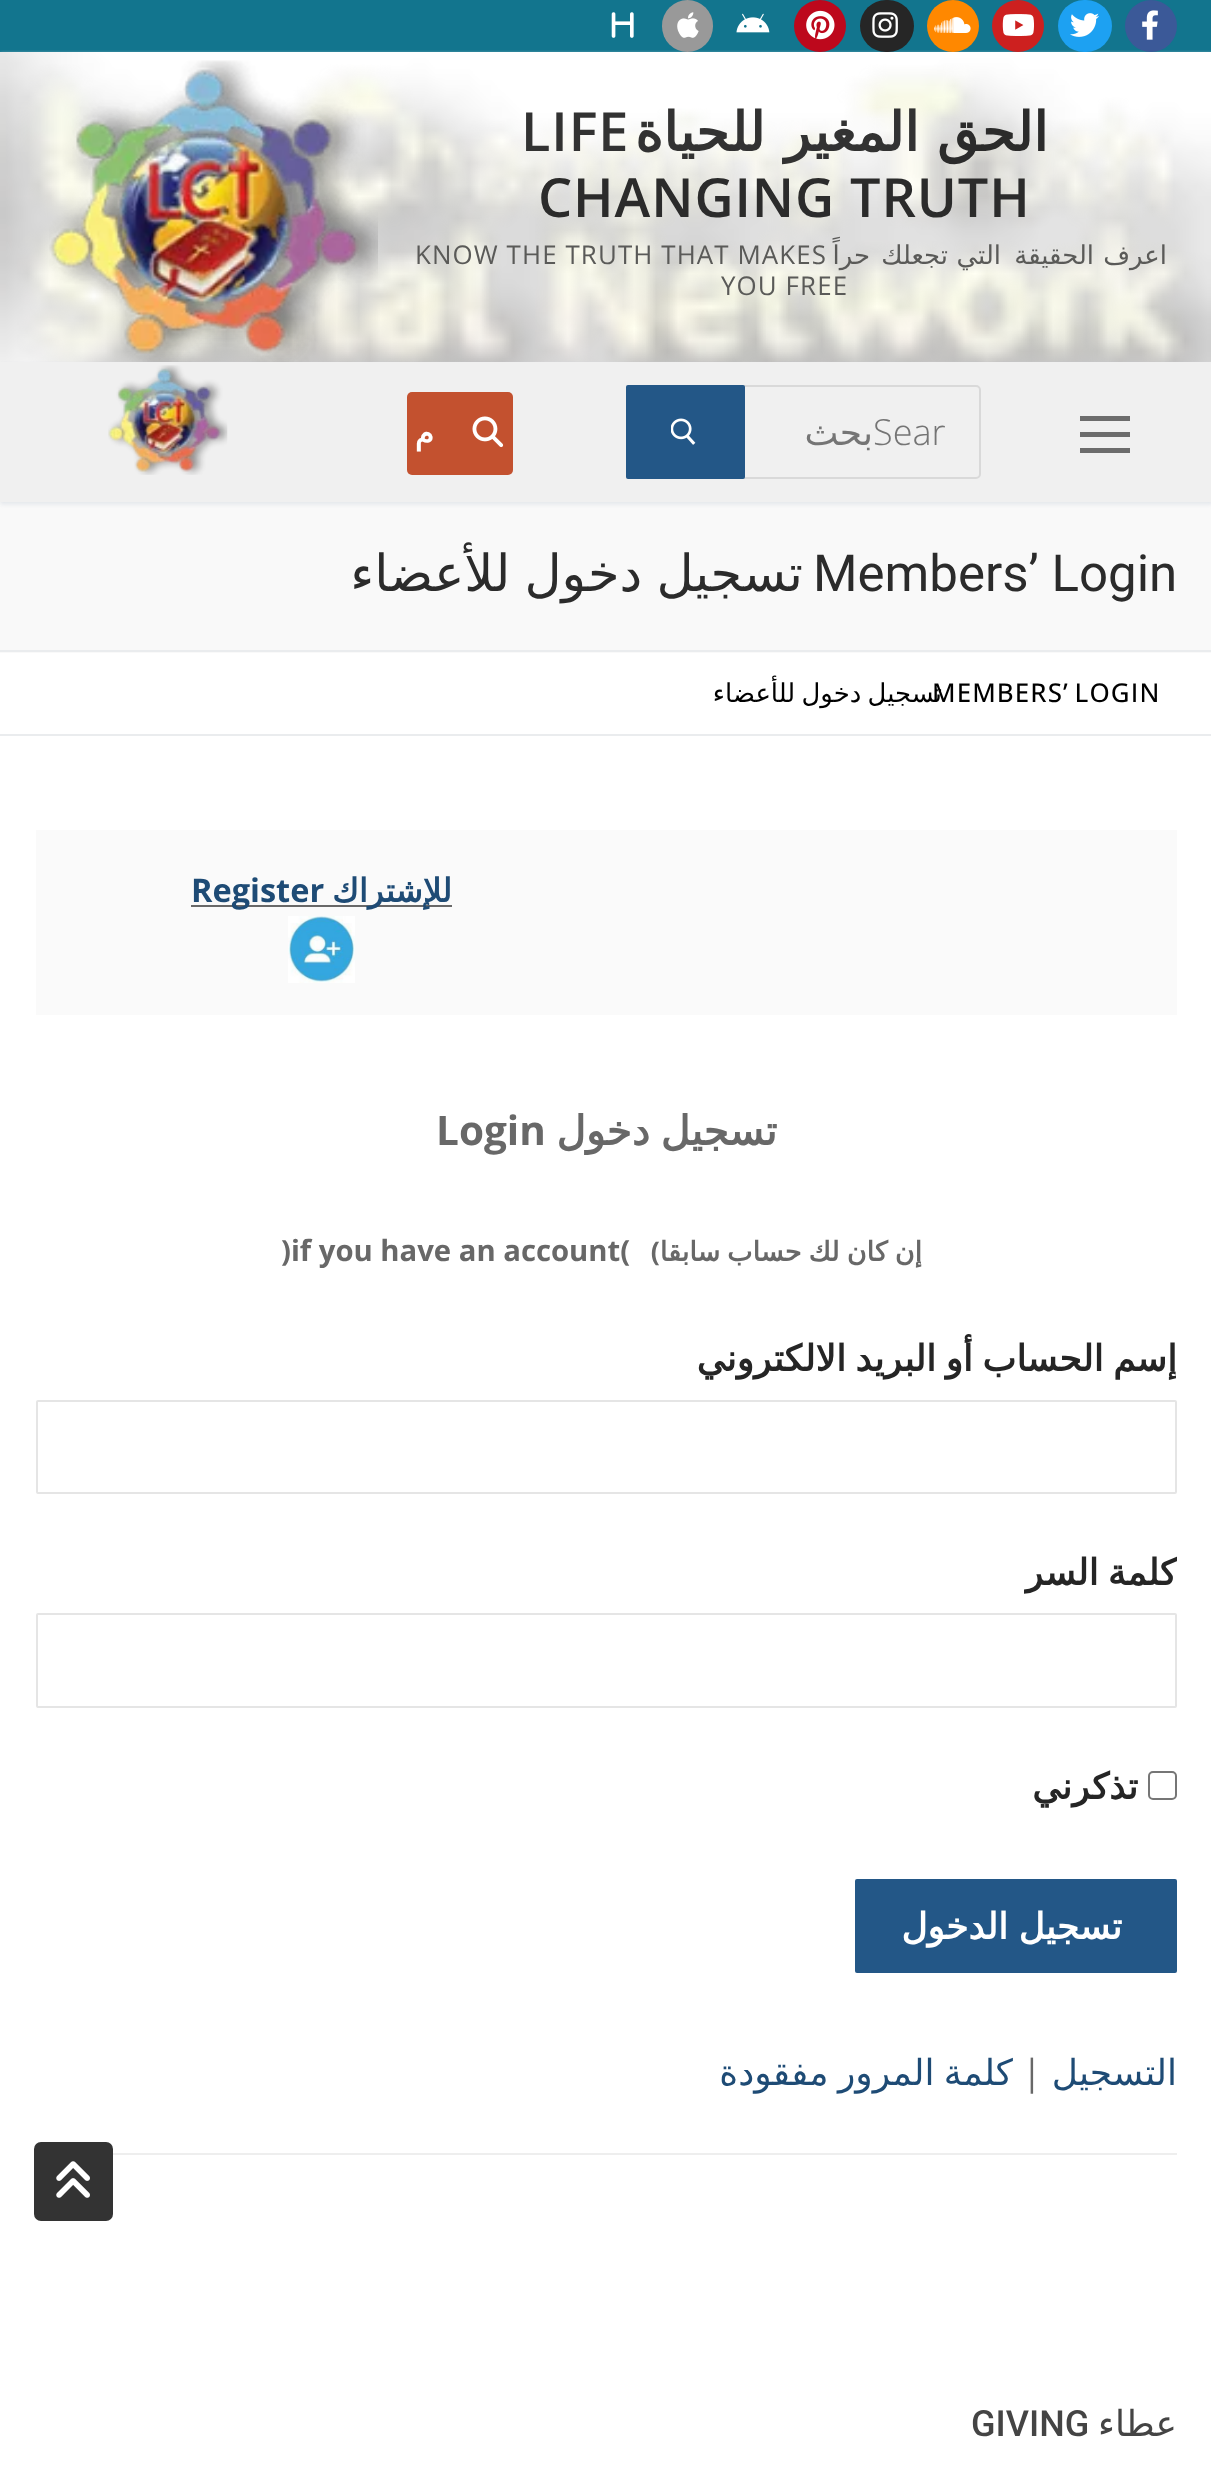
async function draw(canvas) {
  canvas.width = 1211
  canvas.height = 2467
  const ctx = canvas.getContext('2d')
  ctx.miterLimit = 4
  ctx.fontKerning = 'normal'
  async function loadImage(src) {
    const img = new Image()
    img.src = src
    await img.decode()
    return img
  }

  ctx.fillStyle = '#fff'
  ctx.fillRect(0, 0, 1211, 2467)
  ctx.fillStyle = '#12758e'
  ctx.fillRect(0, 0, 1211, 52)
  ctx.save()
  ctx.beginPath()
  ctx.rect(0, 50, 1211, 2)
  ctx.clip()
  ctx.fillStyle = '#e1e5ea'
  ctx.filter = 'blur(2px)'
  ctx.beginPath()
  ctx.rect(0, 54, 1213, 311)
  ctx.fill()
  ctx.filter = 'none'
  ctx.restore()
  ctx.fillStyle = '#3b5998'
  ctx.beginPath()
  ctx.arc(1151, 26, 26, 0, 2 * Math.PI)
  ctx.fill()
  ctx.drawImage(await loadImage('image0.png'), 1142, 10, 16, 30)
  ctx.fillStyle = '#1da1f2'
  ctx.beginPath()
  ctx.roundRect(1058, 0, 54, 52, 26)
  ctx.fill()
  ctx.drawImage(await loadImage('image1.png'), 1070, 13, 29, 24)
  ctx.fillStyle = '#cd201f'
  ctx.beginPath()
  ctx.arc(1018, 26, 26, 0, 2 * Math.PI)
  ctx.fill()
  ctx.drawImage(await loadImage('image2.png'), 1002, 14, 32, 22)
  ctx.fillStyle = '#f80'
  ctx.beginPath()
  ctx.arc(953, 26, 26, 0, 2 * Math.PI)
  ctx.fill()
  ctx.drawImage(await loadImage('image3.png'), 934, 17, 37, 16)
  ctx.fillStyle = '#262626'
  ctx.beginPath()
  ctx.roundRect(860, 0, 54, 52, 26)
  ctx.fill()
  ctx.drawImage(await loadImage('image4.png'), 872, 12, 26, 26)
  ctx.fillStyle = '#bd081c'
  ctx.beginPath()
  ctx.arc(820, 26, 26, 0, 2 * Math.PI)
  ctx.fill()
  ctx.drawImage(await loadImage('image5.png'), 806, 10, 29, 30)
  ctx.drawImage(await loadImage('image6.png'), 736, 13, 34, 20)
  ctx.fillStyle = '#999'
  ctx.beginPath()
  ctx.roundRect(662, 0, 51, 52, 25.5)
  ctx.fill()
  ctx.drawImage(await loadImage('image7.png'), 677, 12, 22, 26)
  ctx.drawImage(await loadImage('image8.png'), 611, 12, 23, 26)
  ctx.drawImage(await loadImage('image9.png'), 0, 52, 1211, 310)
  ctx.letterSpacing = '0.9px'
  ctx.direction = 'rtl'
  ctx.font = 'bold 54px DejaVu Sans'
  ctx.fillStyle = '#2b2b2b'
  ctx.fillText('الحق', 1048, 151)
  ctx.fillStyle = '#323232'
  ctx.fillText('المغير', 919, 151)
  ctx.fillText('للحياة', 765, 151)
  ctx.direction = 'ltr'
  ctx.font = '600 54px Open Sans'
  ctx.fillText('LIFE', 521, 151)
  ctx.fillStyle = '#2b2b2b'
  ctx.fillText('CHANGING TRUTH', 538, 217)
  ctx.letterSpacing = '1.1px'
  ctx.direction = 'rtl'
  ctx.font = '25.9px DejaVu Sans'
  ctx.fillStyle = '#5a5a58'
  ctx.fillText('اعرف', 1167, 264)
  ctx.fillText('الحقيقة', 1094, 264)
  ctx.fillText('التي', 1001, 264)
  ctx.fillText('تجعلك', 948, 264)
  ctx.fillText('حراً', 870, 264)
  ctx.direction = 'ltr'
  ctx.font = '25.9px Open Sans'
  ctx.fillText('KNOW THE TRUTH THAT MAKES', 415, 264)
  ctx.fillText('YOU FREE', 721, 295)
  ctx.fillStyle = '#f9f9f9'
  ctx.fillRect(0, 502, 1211, 151)
  ctx.fillStyle = '#e1e5ea'
  ctx.filter = 'blur(2px)'
  ctx.beginPath()
  ctx.rect(0, 365, 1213, 139)
  ctx.fill()
  ctx.filter = 'none'
  ctx.drawImage(await loadImage('image10.png'), 49, 60, 329, 302)
  ctx.fillStyle = '#f0f0f0'
  ctx.fillRect(0, 362, 1211, 140)
  ctx.fillStyle = '#6c6c6c'
  ctx.fillRect(1080, 432, 50, 5)
  ctx.fillRect(1080, 416, 50, 5)
  ctx.fillRect(1080, 448, 50, 5)
  ctx.beginPath()
  ctx.roundRect(656, 386, 324, 92, 4)
  ctx.strokeStyle = '#d9d9d9'
  ctx.lineWidth = 2
  ctx.stroke()
  ctx.letterSpacing = '0px'
  ctx.font = '300 36px Open Sans'
  ctx.fillStyle = '#757575'
  ctx.fillText('Sear', 873, 445)
  ctx.direction = 'rtl'
  ctx.font = '36px DejaVu Sans'
  ctx.fillText('بحث', 873, 445)
  ctx.fillStyle = '#235787'
  ctx.beginPath()
  ctx.roundRect(626, 385, 119, 94, 2)
  ctx.fill()
  ctx.drawImage(await loadImage('image11.png'), 671, 418, 25, 27)
  ctx.fillStyle = '#c3512f'
  ctx.beginPath()
  ctx.roundRect(407, 392, 106, 83, 5)
  ctx.fill()
  ctx.drawImage(await loadImage('image12.png'), 472, 416, 32, 32)
  ctx.letterSpacing = '-22px'
  ctx.font = 'bold 31px DejaVu Sans'
  ctx.fillStyle = '#fff'
  ctx.fillText('م', 434, 444)
  ctx.drawImage(await loadImage('image13.png'), 108, 365, 120, 110)
  ctx.fillStyle = '#eaecee'
  ctx.fillRect(0, 650, 1211, 2)
  ctx.letterSpacing = '0px'
  ctx.direction = 'ltr'
  ctx.font = '51px Roboto'
  ctx.fillStyle = '#2b2b2b'
  ctx.fillText('Members’ Login', 813, 591)
  ctx.wordSpacing = '-2px'
  ctx.direction = 'rtl'
  ctx.font = '51px DejaVu Sans'
  ctx.fillText('تسجيل دخول للأعضاء', 803, 591)
  ctx.fillStyle = '#eaecee'
  ctx.fillRect(0, 734, 1211, 2)
  ctx.letterSpacing = '1.1px'
  ctx.wordSpacing = '-3px'
  ctx.font = '25.9px DejaVu Sans'
  ctx.fillStyle = '#000'
  ctx.fillText('تسجيل دخول للأعضاء', 942, 702)
  ctx.wordSpacing = '-2px'
  ctx.direction = 'ltr'
  ctx.font = '500 25.9px Open Sans'
  ctx.fillText('MEMBERS’ LOGIN', 932, 702)
  ctx.fillStyle = '#fafafa'
  ctx.fillRect(36, 830, 1141, 185)
  ctx.fillStyle = '#686868'
  ctx.fillRect(333, 905, 119, 2)
  ctx.letterSpacing = '0px'
  ctx.wordSpacing = '0px'
  ctx.direction = 'rtl'
  ctx.font = 'bold 32.5px DejaVu Sans'
  ctx.fillStyle = '#1e4b75'
  ctx.fillText('للإشتراك', 452, 902)
  ctx.fillStyle = '#686868'
  ctx.fillRect(191, 905, 142, 2)
  ctx.direction = 'ltr'
  ctx.font = 'bold 32.5px Open Sans'
  ctx.fillStyle = '#1e4b75'
  ctx.fillText('Register', 191, 902)
  ctx.drawImage(await loadImage('image14.png'), 288, 916, 67, 67)
  ctx.wordSpacing = '-2px'
  ctx.direction = 'rtl'
  ctx.font = 'bold 40.5px DejaVu Sans'
  ctx.fillStyle = '#686868'
  ctx.fillText('تسجيل دخول', 777, 1145)
  ctx.wordSpacing = '0px'
  ctx.direction = 'ltr'
  ctx.font = 'bold 40.5px Open Sans'
  ctx.fillText('Login', 436, 1145)
  ctx.wordSpacing = '-1.5px'
  ctx.direction = 'rtl'
  ctx.font = 'bold 27px DejaVu Sans'
  ctx.fillText('إن كان لك حساب سابقا', 922, 1261)
  ctx.wordSpacing = '0px'
  ctx.font = 'bold 27px Open Sans'
  ctx.fillText(')', 660, 1261)
  ctx.direction = 'ltr'
  ctx.font = 'bold 29.25px Open Sans'
  ctx.fillText(')if you have an account(', 281, 1261)
  ctx.save()
  ctx.beginPath()
  ctx.rect(36, 830, 1141, 1377)
  ctx.clip()
  ctx.wordSpacing = '-2px'
  ctx.direction = 'rtl'
  ctx.font = 'bold 36px DejaVu Sans'
  ctx.fillStyle = '#252525'
  ctx.fillText('إسم الحساب أو البريد الالكتروني', 1177, 1371)
  ctx.restore()
  ctx.beginPath()
  ctx.roundRect(37, 1401, 1139, 92, 1)
  ctx.strokeStyle = '#e5e5e5'
  ctx.stroke()
  ctx.save()
  ctx.beginPath()
  ctx.rect(36, 830, 1141, 1377)
  ctx.clip()
  ctx.wordSpacing = '-2px'
  ctx.direction = 'rtl'
  ctx.font = 'bold 36px DejaVu Sans'
  ctx.fillStyle = '#252525'
  ctx.fillText('كلمة السر', 1177, 1585)
  ctx.restore()
  ctx.beginPath()
  ctx.roundRect(37, 1614, 1139, 93, 1)
  ctx.stroke()
  ctx.beginPath()
  ctx.roundRect(1149, 1772, 27, 27, 4)
  ctx.strokeStyle = '#767676'
  ctx.stroke()
  ctx.direction = 'rtl'
  ctx.font = 'bold 36px DejaVu Sans'
  ctx.fillStyle = '#252525'
  ctx.fillText('تذكرني', 1138, 1799)
  ctx.fillStyle = '#235787'
  ctx.beginPath()
  ctx.roundRect(855, 1879, 322, 94, 2)
  ctx.fill()
  ctx.wordSpacing = '-1px'
  ctx.fillStyle = '#fff'
  ctx.fillText('تسجيل الدخول', 1122, 1939)
  ctx.wordSpacing = '0px'
  ctx.font = '36px DejaVu Sans'
  ctx.fillStyle = '#1e4b75'
  ctx.fillText('التسجيل', 1177, 2085)
  ctx.direction = 'ltr'
  ctx.font = '36px Open Sans'
  ctx.fillStyle = '#686868'
  ctx.fillText('|', 1022, 2085)
  ctx.wordSpacing = '-2px'
  ctx.direction = 'rtl'
  ctx.font = '36px DejaVu Sans'
  ctx.fillStyle = '#1e4b75'
  ctx.fillText('كلمة المرور مفقودة', 1013, 2085)
  ctx.fillStyle = '#eee'
  ctx.fillRect(113, 2153, 1064, 2)
  ctx.wordSpacing = '0px'
  ctx.fillStyle = '#444'
  ctx.fillText('عطاء', 1177, 2436)
  ctx.direction = 'ltr'
  ctx.font = '500 36px Roboto'
  ctx.fillText('GIVING', 971, 2436)
  ctx.fillStyle = '#333'
  ctx.beginPath()
  ctx.roundRect(34, 2142, 79, 79, 7)
  ctx.fill()
  ctx.drawImage(await loadImage('image15.png'), 56, 2161, 34, 37)
}

draw(document.querySelector('canvas'))
